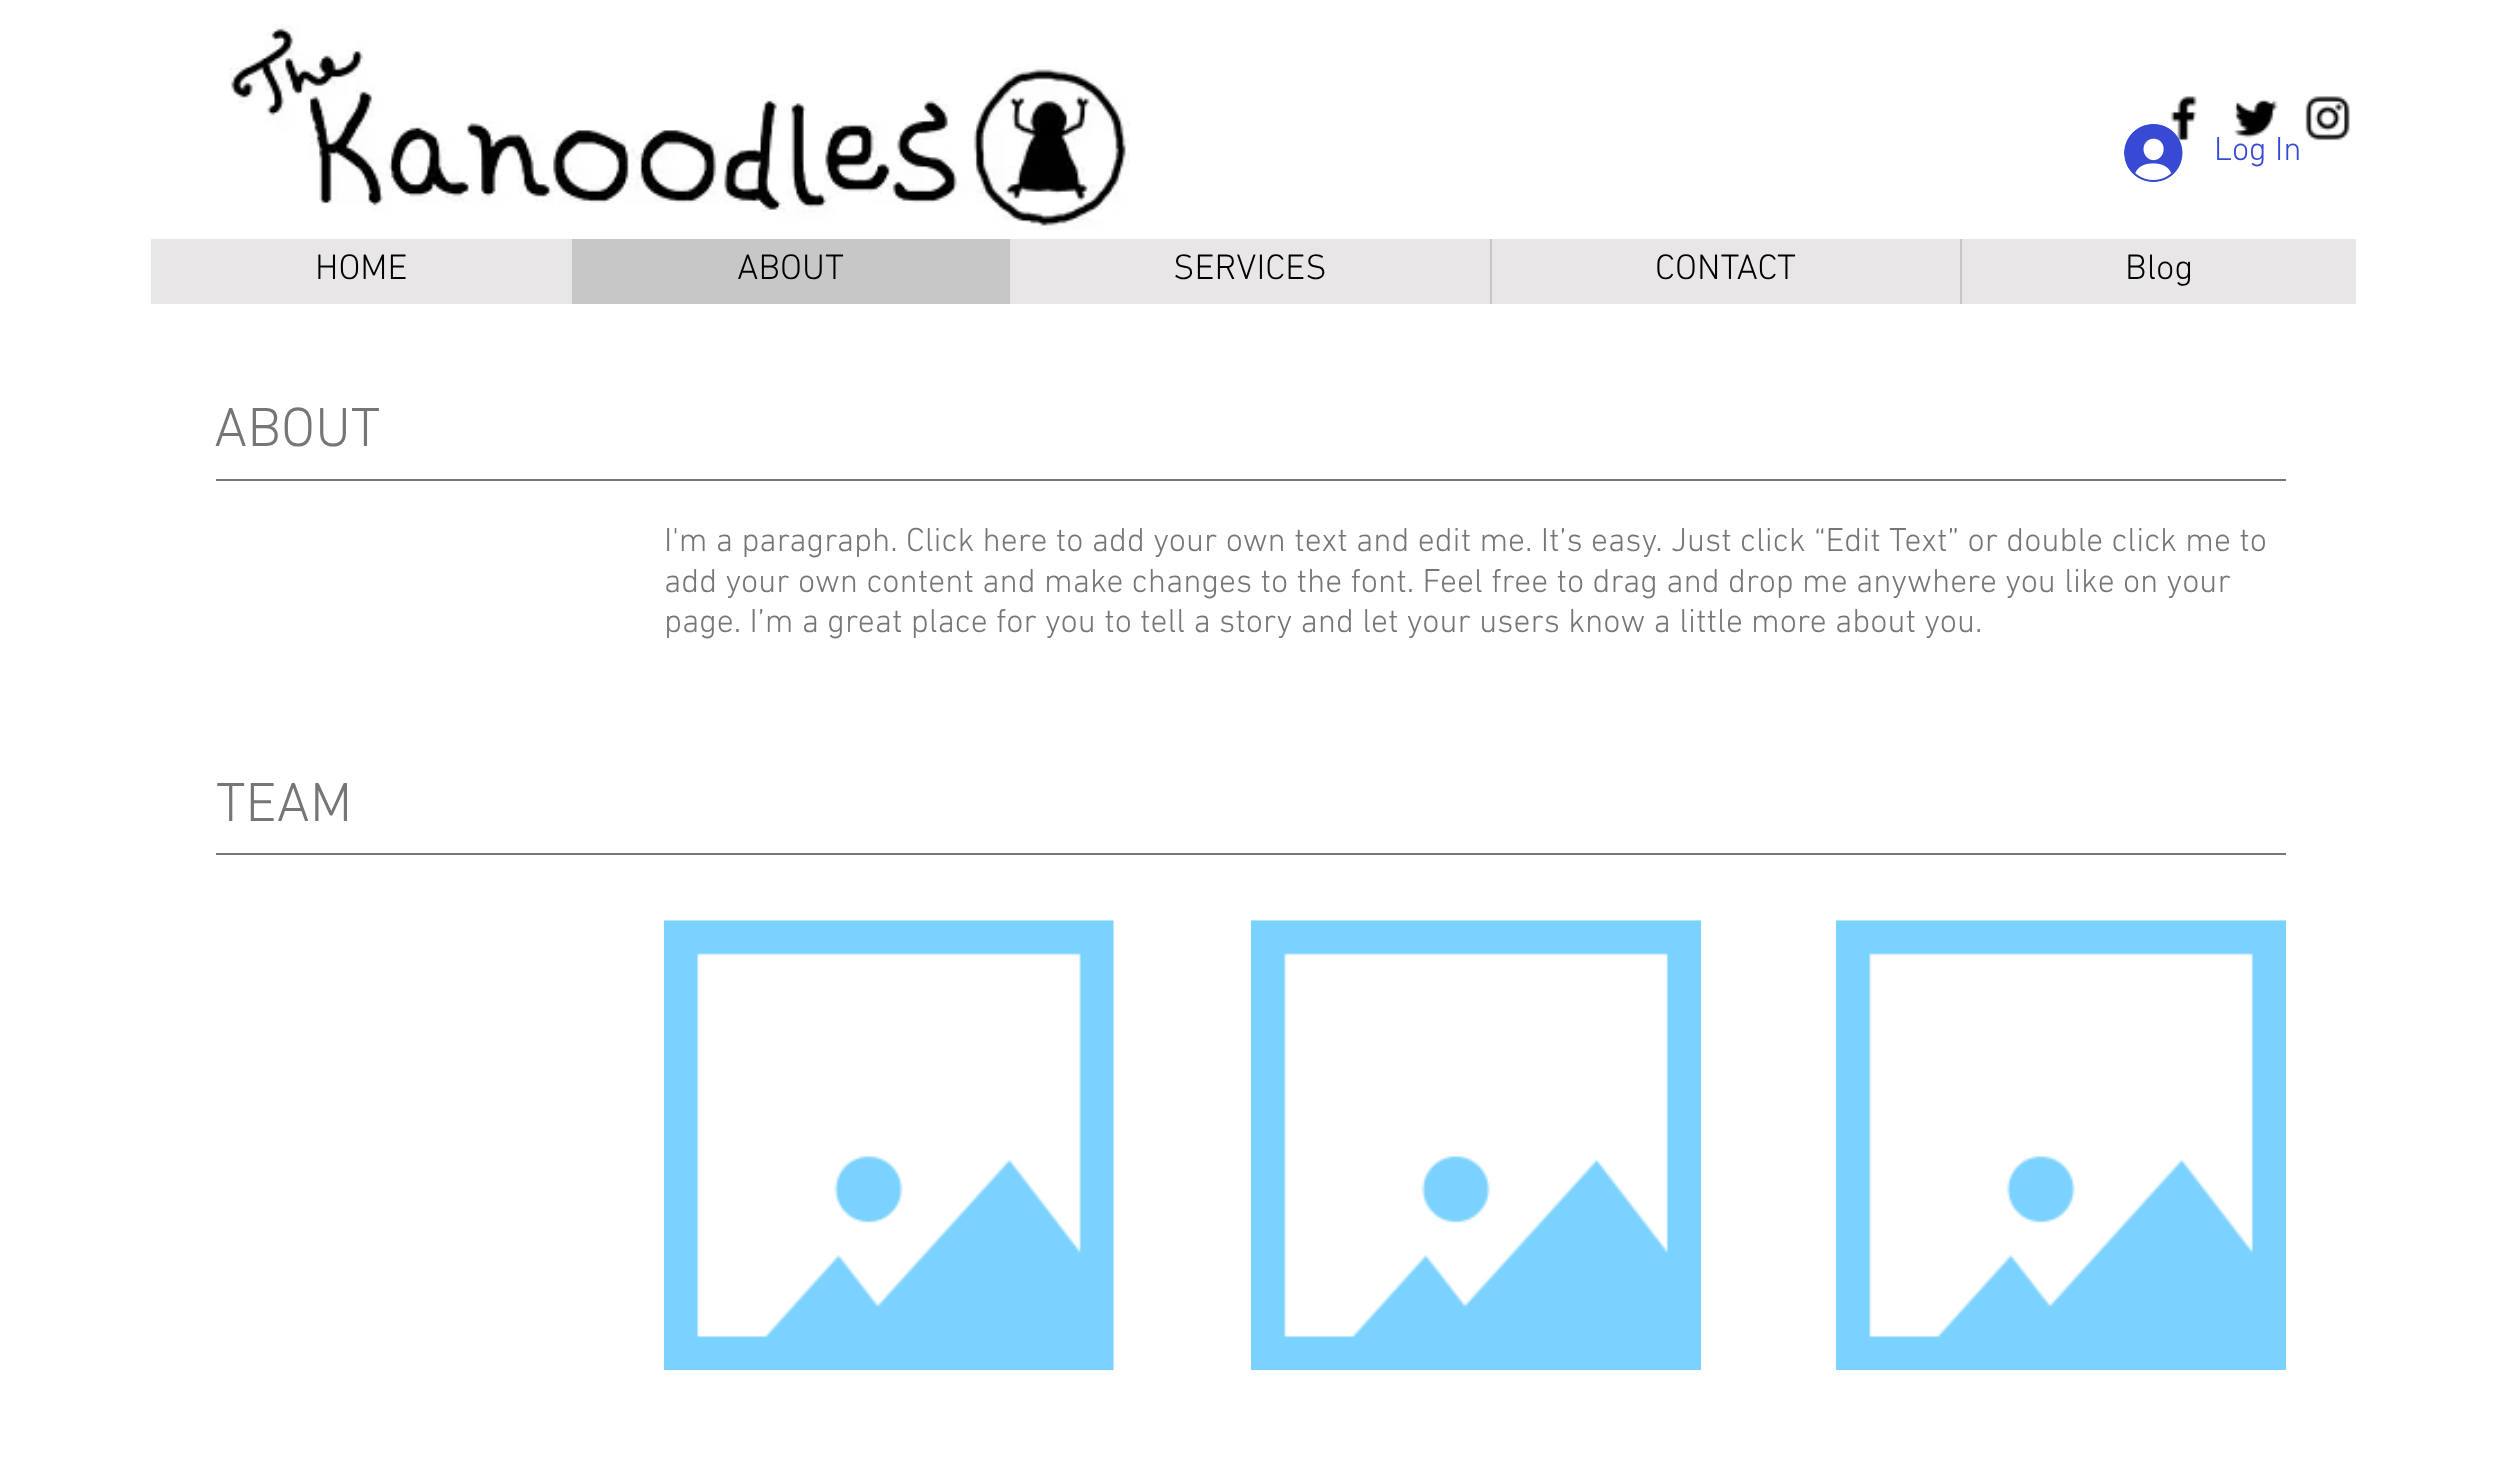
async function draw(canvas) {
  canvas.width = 2505
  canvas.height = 1484
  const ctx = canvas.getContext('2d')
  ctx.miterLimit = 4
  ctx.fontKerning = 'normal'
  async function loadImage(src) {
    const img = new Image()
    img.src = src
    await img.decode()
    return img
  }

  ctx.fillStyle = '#fff'
  ctx.fillRect(0, 0, 2505, 1484)
  ctx.drawImage(await loadImage('image0.png'), 229, 23, 901, 207)
  ctx.drawImage(await loadImage('image1.png'), 2170, 96, 27, 45)
  ctx.drawImage(await loadImage('image2.png'), 2234, 99, 44, 39)
  ctx.drawImage(await loadImage('image3.png'), 2305, 96, 45, 45)
  ctx.drawImage(await loadImage('image4.png'), 2124, 124, 59, 58)
  ctx.font = '300 33.75px "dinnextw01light"'
  ctx.fillStyle = '#384ad3'
  ctx.fillText('Log In', 2214, 160)
  ctx.fillStyle = '#e8e6e6'
  ctx.fillRect(151, 239, 2205, 65)
  ctx.font = '300 36px "dinnextw01light"'
  ctx.fillStyle = '#000'
  ctx.fillText('HOME', 315, 279)
  ctx.fillStyle = '#c7c7c7'
  ctx.fillRect(572, 239, 438, 65)
  ctx.fillStyle = '#000'
  ctx.fillText('ABOUT', 737, 279)
  ctx.fillText('SERVICES', 1173, 279)
  ctx.fillStyle = '#c7c7c7'
  ctx.fillRect(1490, 239, 2, 65)
  ctx.fillStyle = '#000'
  ctx.fillText('CONTACT', 1655, 279)
  ctx.fillStyle = '#c7c7c7'
  ctx.fillRect(1960, 239, 2, 65)
  ctx.fillStyle = '#000'
  ctx.fillText('Blog', 2125, 279)
  ctx.font = '300 56px "dinnextw01light"'
  ctx.fillStyle = '#767676'
  ctx.fillText('ABOUT', 214, 446)
  ctx.fillRect(216, 479, 2070, 2)
  ctx.font = '300 33.75px "dinnextw01light"'
  ctx.fillText('I\'m a paragraph. Click here to add your own text and edit me. It’s easy. Just click “Edit Text” or double click me to', 664, 551)
  ctx.fillText('add your own content and make changes to the font. Feel free to drag and drop me anywhere you like on your', 664, 592)
  ctx.fillText('page. I’m a great place for you to tell a story and let your users know a little more about you.', 664, 632)
  ctx.font = '300 56px "dinnextw01light"'
  ctx.fillText('TEAM', 216, 821)
  ctx.fillRect(216, 853, 2070, 2)
  ctx.drawImage(await loadImage('image5.png'), 663, 920, 451, 451)
  ctx.drawImage(await loadImage('image6.png'), 1251, 920, 450, 451)
  ctx.drawImage(await loadImage('image7.png'), 1836, 920, 450, 451)
}

draw(document.querySelector('canvas'))
